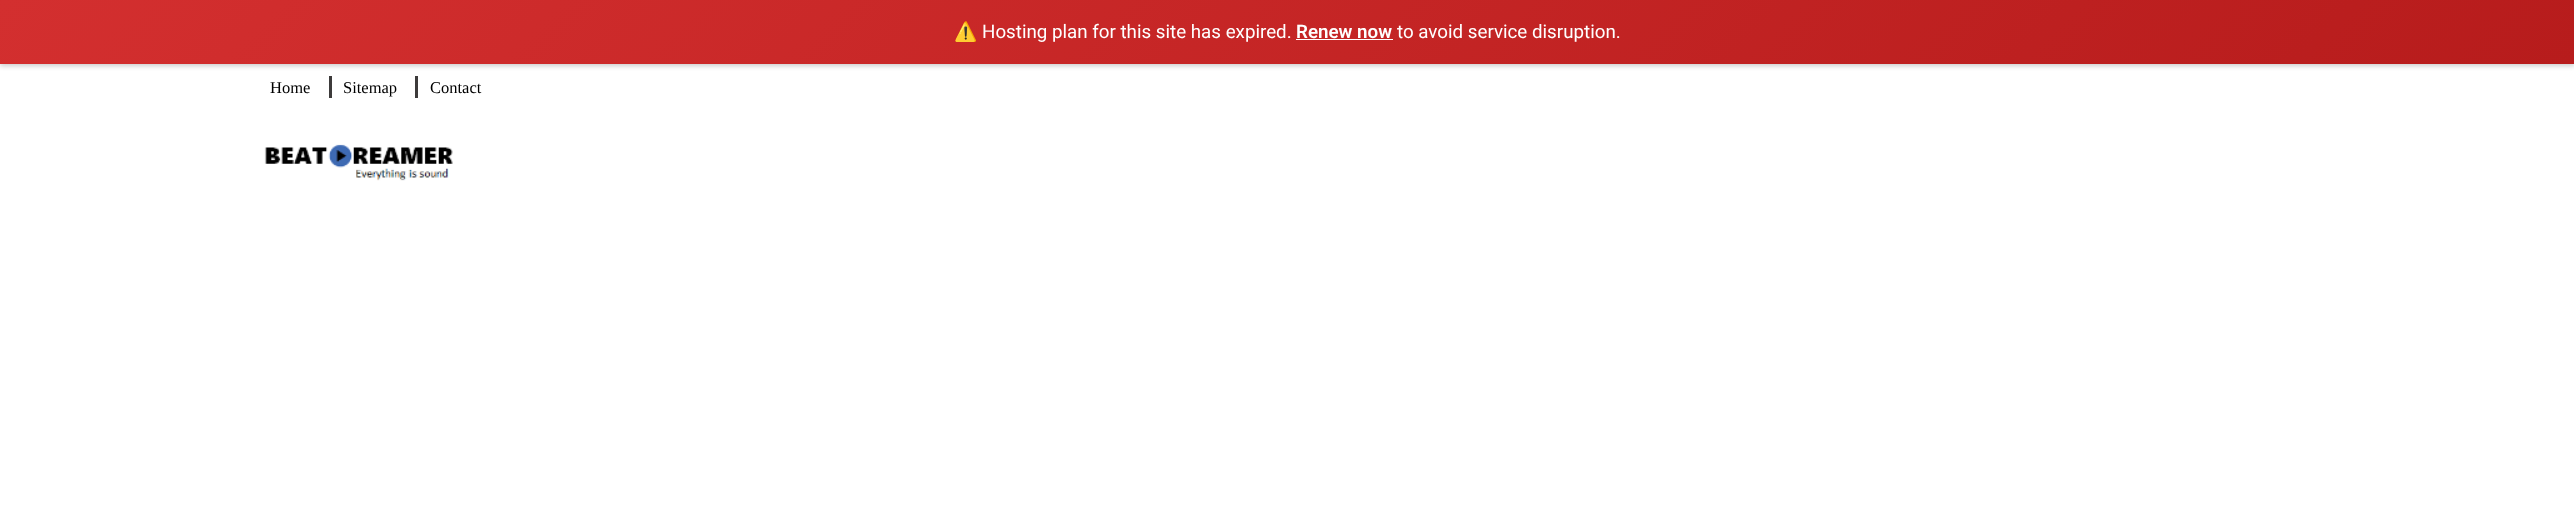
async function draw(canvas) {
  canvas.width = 2574
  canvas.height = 527
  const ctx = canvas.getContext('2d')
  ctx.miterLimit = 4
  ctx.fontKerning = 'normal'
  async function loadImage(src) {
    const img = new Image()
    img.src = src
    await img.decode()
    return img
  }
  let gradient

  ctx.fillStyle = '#fff'
  ctx.fillRect(0, 0, 2574, 527)
  ctx.fillStyle = '#00000033'
  ctx.filter = 'blur(2.5px)'
  ctx.beginPath()
  ctx.rect(0, 3, 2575, 63)
  ctx.fill()
  ctx.filter = 'none'
  gradient = ctx.createLinearGradient(628, -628, 1947, 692)
  gradient.addColorStop(0, '#d32f2f')
  gradient.addColorStop(1, '#b71c1c')
  ctx.fillStyle = gradient
  ctx.fillRect(0, 0, 2574, 64)
  ctx.font = '18.75px Noto Color Emoji'
  ctx.fillStyle = '#fff'
  ctx.fillText('⚠️', 954, 38)
  ctx.font = '18.75px Roboto'
  ctx.fillText('Hosting plan for this site has expired.', 982, 38)
  ctx.font = '600 18.75px Roboto'
  ctx.fillText('Renew now', 1296, 38)
  ctx.fillRect(1296, 39, 97, 1)
  ctx.font = '18.75px Roboto'
  ctx.fillText('to avoid service disruption.', 1397, 38)
  ctx.font = '16.5px Liberation Serif'
  ctx.fillStyle = '#000'
  ctx.fillText('Home', 270, 93)
  ctx.fillText('Sitemap', 343, 93)
  ctx.fillStyle = '#3d3b3b'
  ctx.fillRect(329, 76, 3, 22)
  ctx.fillStyle = '#000'
  ctx.fillText('Contact', 430, 93)
  ctx.fillStyle = '#3d3b3b'
  ctx.fillRect(415, 76, 3, 22)
  ctx.drawImage(await loadImage('image0.png'), 264, 144, 189, 37)
}

draw(document.querySelector('canvas'))
